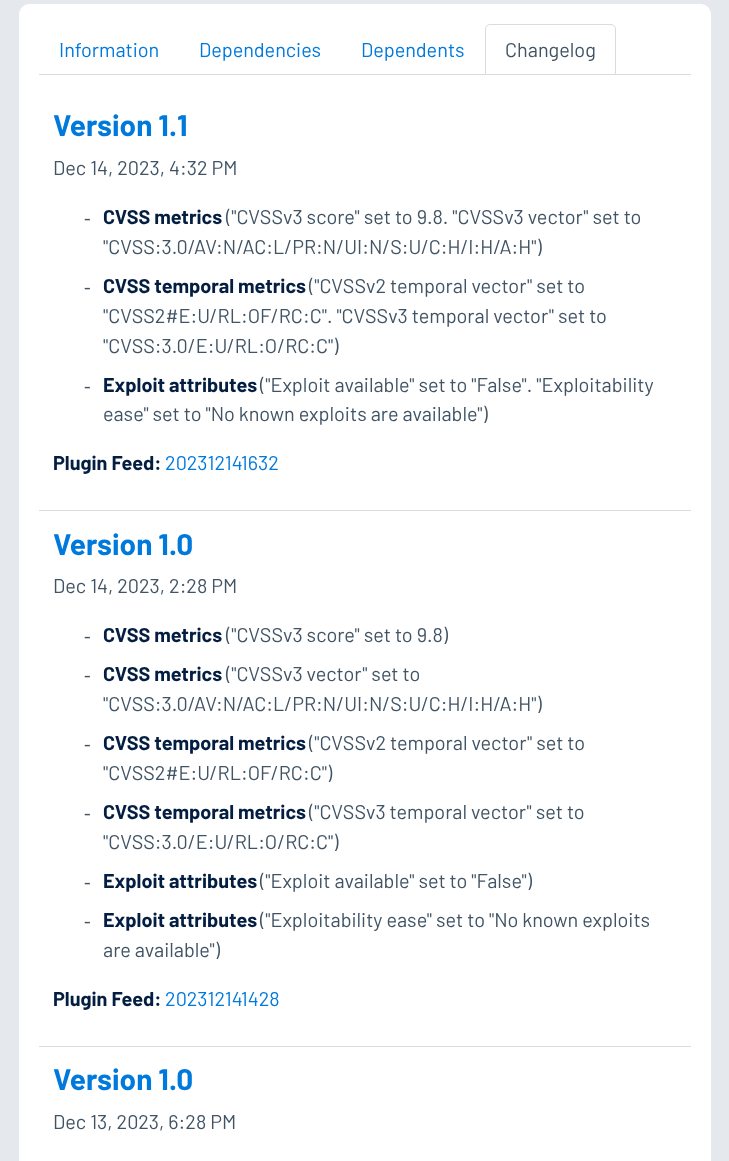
async function draw(canvas) {
  canvas.width = 729
  canvas.height = 1161
  const ctx = canvas.getContext('2d')
  ctx.miterLimit = 4
  ctx.fontKerning = 'normal'

  ctx.fillStyle = '#e5e9ed'
  ctx.fillRect(0, 0, 729, 1161)
  ctx.fillStyle = '#fff'
  ctx.beginPath()
  ctx.roundRect(19.5, 4.5, 691, 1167, 9.5)
  ctx.fill()
  ctx.strokeStyle = '#fff'
  ctx.stroke()
  ctx.fillStyle = '#d9dbe0'
  ctx.fillRect(39, 74, 652, 1)
  ctx.font = '19.85px Barlow'
  ctx.fillStyle = '#0079dd'
  ctx.fillText('Information', 59, 57)
  ctx.fillText('Dependencies', 199, 57)
  ctx.fillText('Dependents', 361, 57)
  ctx.fillStyle = '#fff'
  ctx.beginPath()
  ctx.roundRect(485.5, 24.5, 130, 50, [4.5, 4.5, 0, 0])
  ctx.fill()
  ctx.strokeStyle = '#d9dbe0'
  ctx.stroke()
  ctx.fillStyle = '#415465'
  ctx.fillText('Changelog', 505, 57)
  ctx.font = 'bold 29.75px Barlow'
  ctx.fillStyle = '#0079dd'
  ctx.fillText('Version 1.1', 53, 136)
  ctx.font = '19.85px Barlow'
  ctx.fillStyle = '#415465'
  ctx.fillText('Dec 14, 2023, 4:32 PM', 53, 175)
  ctx.fillText('‑', 84, 224)
  ctx.font = 'bold 19.85px Barlow'
  ctx.fillStyle = '#041e42'
  ctx.fillText('CVSS metrics', 103, 224)
  ctx.font = '19.85px Barlow'
  ctx.fillStyle = '#415465'
  ctx.fillText('("CVSSv3 score" set to 9.8. "CVSSv3 vector" set to', 226, 224)
  ctx.fillText('"CVSS:3.0/AV:N/AC:L/PR:N/UI:N/S:U/C:H/I:H/A:H")', 103, 254)
  ctx.fillText('‑', 84, 293)
  ctx.font = 'bold 19.85px Barlow'
  ctx.fillStyle = '#041e42'
  ctx.fillText('CVSS temporal metrics', 103, 293)
  ctx.font = '19.85px Barlow'
  ctx.fillStyle = '#415465'
  ctx.fillText('("CVSSv2 temporal vector" set to', 309, 293)
  ctx.fillText('"CVSS2#E:U/RL:OF/RC:C". "CVSSv3 temporal vector" set to', 103, 323)
  ctx.fillText('"CVSS:3.0/E:U/RL:O/RC:C")', 103, 353)
  ctx.fillText('‑', 84, 392)
  ctx.font = 'bold 19.85px Barlow'
  ctx.fillStyle = '#041e42'
  ctx.fillText('Exploit attributes', 103, 392)
  ctx.font = '19.85px Barlow'
  ctx.fillStyle = '#415465'
  ctx.fillText('("Exploit available" set to "False". "Exploitability', 260, 392)
  ctx.fillText('ease" set to "No known exploits are available")', 103, 421)
  ctx.font = 'bold 19.85px Barlow'
  ctx.fillStyle = '#041e42'
  ctx.fillText('Plugin Feed:', 53, 470)
  ctx.font = '19.85px Barlow'
  ctx.fillStyle = '#0079dd'
  ctx.fillText('202312141632', 165, 470)
  ctx.fillStyle = '#d9dbe0'
  ctx.fillRect(39, 510, 652, 1)
  ctx.font = 'bold 29.75px Barlow'
  ctx.fillStyle = '#0079dd'
  ctx.fillText('Version 1.0', 53, 555)
  ctx.font = '19.85px Barlow'
  ctx.fillStyle = '#415465'
  ctx.fillText('Dec 14, 2023, 2:28 PM', 53, 593)
  ctx.fillText('‑', 84, 642)
  ctx.font = 'bold 19.85px Barlow'
  ctx.fillStyle = '#041e42'
  ctx.fillText('CVSS metrics', 103, 642)
  ctx.font = '19.85px Barlow'
  ctx.fillStyle = '#415465'
  ctx.fillText('("CVSSv3 score" set to 9.8)', 226, 642)
  ctx.fillText('‑', 84, 681)
  ctx.font = 'bold 19.85px Barlow'
  ctx.fillStyle = '#041e42'
  ctx.fillText('CVSS metrics', 103, 681)
  ctx.font = '19.85px Barlow'
  ctx.fillStyle = '#415465'
  ctx.fillText('("CVSSv3 vector" set to', 226, 681)
  ctx.fillText('"CVSS:3.0/AV:N/AC:L/PR:N/UI:N/S:U/C:H/I:H/A:H")', 103, 711)
  ctx.fillText('‑', 84, 750)
  ctx.font = 'bold 19.85px Barlow'
  ctx.fillStyle = '#041e42'
  ctx.fillText('CVSS temporal metrics', 103, 750)
  ctx.font = '19.85px Barlow'
  ctx.fillStyle = '#415465'
  ctx.fillText('("CVSSv2 temporal vector" set to', 309, 750)
  ctx.fillText('"CVSS2#E:U/RL:OF/RC:C")', 103, 780)
  ctx.fillText('‑', 84, 819)
  ctx.font = 'bold 19.85px Barlow'
  ctx.fillStyle = '#041e42'
  ctx.fillText('CVSS temporal metrics', 103, 819)
  ctx.font = '19.85px Barlow'
  ctx.fillStyle = '#415465'
  ctx.fillText('("CVSSv3 temporal vector" set to', 309, 819)
  ctx.fillText('"CVSS:3.0/E:U/RL:O/RC:C")', 103, 849)
  ctx.fillText('‑', 84, 888)
  ctx.font = 'bold 19.85px Barlow'
  ctx.fillStyle = '#041e42'
  ctx.fillText('Exploit attributes', 103, 888)
  ctx.font = '19.85px Barlow'
  ctx.fillStyle = '#415465'
  ctx.fillText('("Exploit available" set to "False")', 260, 888)
  ctx.fillText('‑', 84, 927)
  ctx.font = 'bold 19.85px Barlow'
  ctx.fillStyle = '#041e42'
  ctx.fillText('Exploit attributes', 103, 927)
  ctx.font = '19.85px Barlow'
  ctx.fillStyle = '#415465'
  ctx.fillText('("Exploitability ease" set to "No known exploits', 260, 927)
  ctx.fillText('are available")', 103, 957)
  ctx.font = 'bold 19.85px Barlow'
  ctx.fillStyle = '#041e42'
  ctx.fillText('Plugin Feed:', 53, 1006)
  ctx.font = '19.85px Barlow'
  ctx.fillStyle = '#0079dd'
  ctx.fillText('202312141428', 165, 1006)
  ctx.fillStyle = '#d9dbe0'
  ctx.fillRect(39, 1046, 652, 1)
  ctx.font = 'bold 29.75px Barlow'
  ctx.fillStyle = '#0079dd'
  ctx.fillText('Version 1.0', 53, 1090)
  ctx.font = '19.85px Barlow'
  ctx.fillStyle = '#415465'
  ctx.fillText('Dec 13, 2023, 6:28 PM', 53, 1129)
}

draw(document.querySelector('canvas'))
